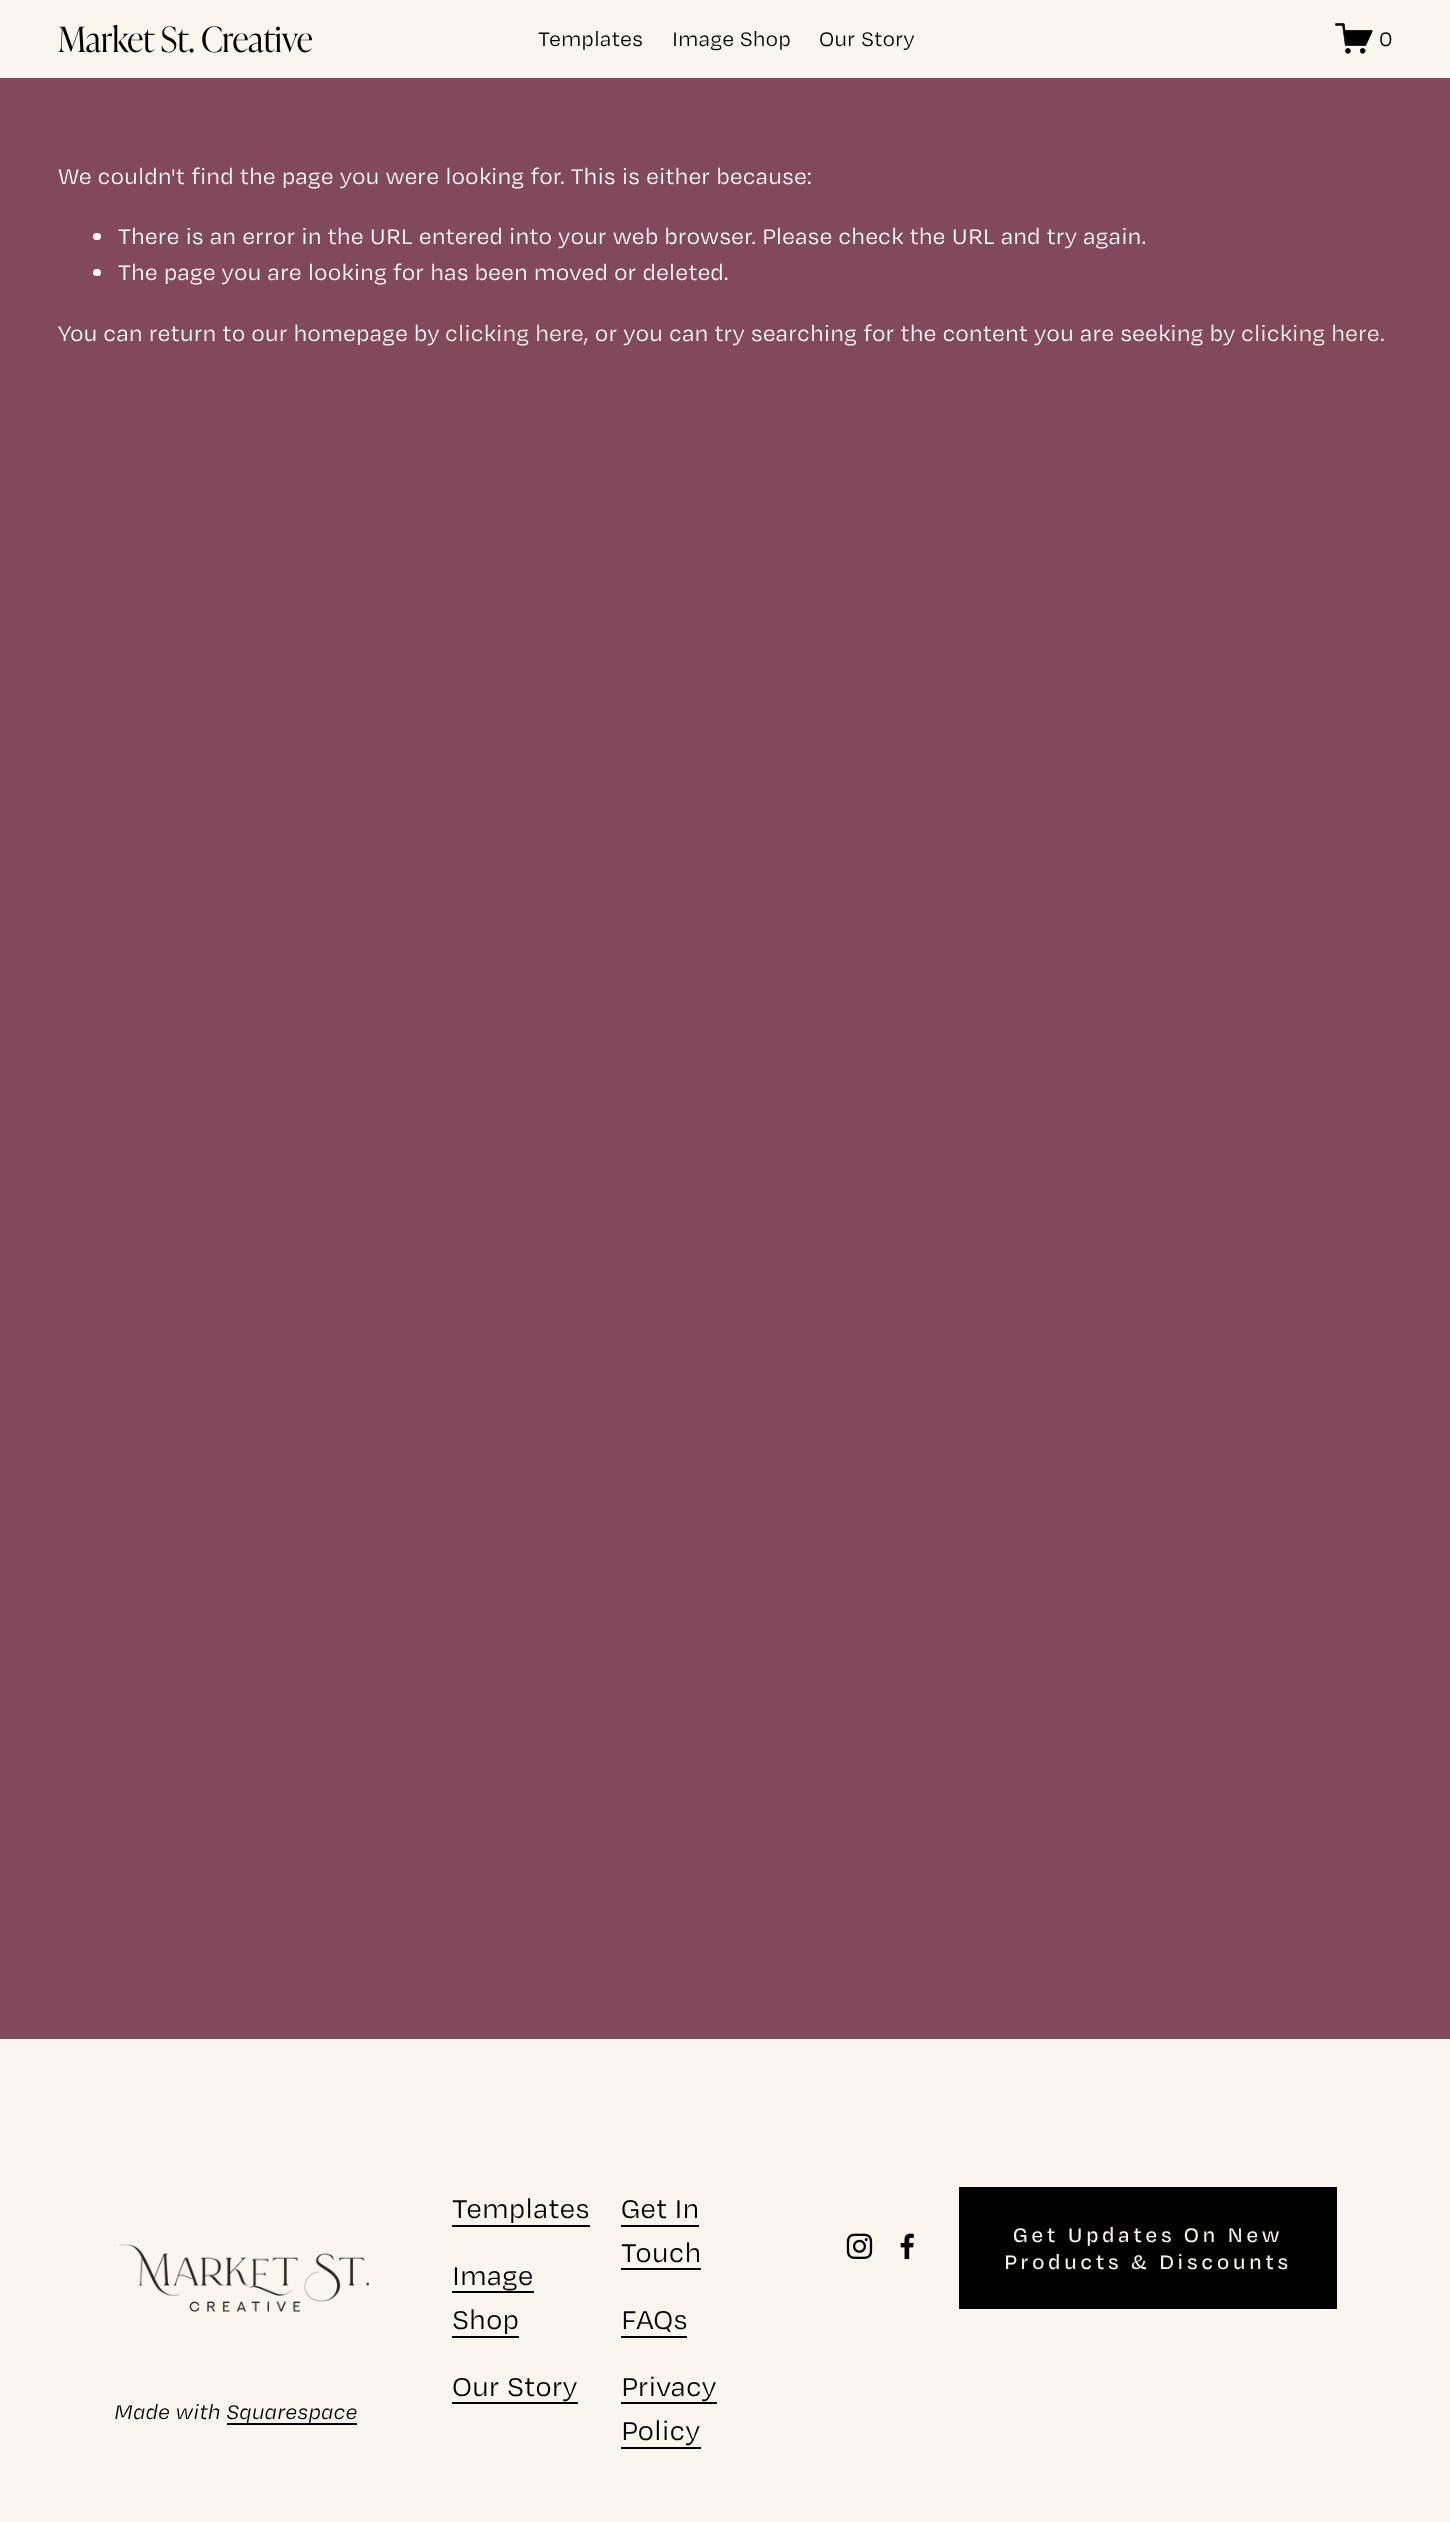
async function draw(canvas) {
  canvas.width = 1450
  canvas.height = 2522
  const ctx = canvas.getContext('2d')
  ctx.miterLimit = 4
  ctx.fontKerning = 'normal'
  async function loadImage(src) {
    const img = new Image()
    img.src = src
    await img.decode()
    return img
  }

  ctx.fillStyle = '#82495c'
  ctx.fillRect(0, 0, 1450, 2522)
  ctx.fillStyle = '#faf6ee'
  ctx.fillRect(0, 0, 1450, 78)
  ctx.font = '300 34.75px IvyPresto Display'
  ctx.fillStyle = '#000'
  ctx.fillText('Market St. Creative', 58, 52)
  ctx.font = '22.5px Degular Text'
  ctx.fillText('Templates', 538, 46)
  ctx.fillText('Image Shop', 672, 46)
  ctx.fillText('Our Story', 819, 46)
  ctx.drawImage(await loadImage('image0.png'), 1335, 23, 38, 31)
  ctx.fillText('0', 1379, 46)
  ctx.font = '24.25px Degular Text'
  ctx.fillStyle = '#fff'
  ctx.fillText('We couldn\'t find the page you were looking for. This is either because:', 58, 184)
  ctx.beginPath()
  ctx.roundRect(93, 233, 8, 7, 3.5)
  ctx.fill()
  ctx.fillText('There is an error in the URL entered into your web browser. Please check the URL and try again.', 118, 244)
  ctx.beginPath()
  ctx.roundRect(93, 269, 8, 7, 3.5)
  ctx.fill()
  ctx.fillText('The page you are looking for has been moved or deleted.', 118, 280)
  ctx.fillText('You can return to our homepage by', 58, 341)
  ctx.fillStyle = '#faf6ee'
  ctx.fillText('clicking here', 445, 341)
  ctx.fillStyle = '#fff'
  ctx.fillText(', or you can try searching for the content you are seeking by', 584, 341)
  ctx.fillStyle = '#faf6ee'
  ctx.fillText('clicking here', 1241, 341)
  ctx.fillStyle = '#fff'
  ctx.fillText('.', 1380, 341)
  ctx.fillStyle = '#faf6ee'
  ctx.fillRect(0, 2039, 1450, 483)
  ctx.drawImage(await loadImage('image1.png'), 119, 2244, 250, 68)
  ctx.font = '29.5px Degular Text'
  ctx.fillStyle = '#000'
  ctx.fillText('Templates', 452, 2218)
  ctx.fillRect(452, 2225, 138, 2)
  ctx.fillText('Image', 452, 2285)
  ctx.fillRect(452, 2291, 82, 2)
  ctx.fillText('Shop', 452, 2329)
  ctx.fillRect(452, 2336, 67, 2)
  ctx.fillText('Our Story', 452, 2396)
  ctx.fillRect(452, 2402, 126, 2)
  ctx.fillText('Get In', 621, 2218)
  ctx.fillRect(621, 2225, 78, 2)
  ctx.fillText('Touch', 621, 2262)
  ctx.fillRect(621, 2268, 80, 2)
  ctx.fillText('FAQs', 621, 2329)
  ctx.fillRect(621, 2336, 66, 2)
  ctx.fillText('Privacy', 621, 2396)
  ctx.fillRect(621, 2402, 96, 2)
  ctx.fillText('Policy', 621, 2440)
  ctx.fillRect(621, 2447, 80, 2)
  ctx.drawImage(await loadImage('image2.png'), 846, 2233, 27, 26)
  ctx.drawImage(await loadImage('image3.png'), 900, 2233, 14, 26)
  ctx.fillRect(959, 2187, 378, 122)
  ctx.letterSpacing = '3.4px'
  ctx.font = '500 22.5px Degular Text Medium'
  ctx.fillStyle = '#faf6ee'
  ctx.fillText('Get Updates On New', 1013, 2242)
  ctx.fillText('Products & Discounts', 1004, 2269)
  ctx.letterSpacing = '0px'
  ctx.font = 'italic 22.5px Degular Text'
  ctx.fillStyle = '#000'
  ctx.fillText('Made with Squarespace', 114, 2419)
  ctx.fillRect(227, 2423, 130, 2)
}

draw(document.querySelector('canvas'))
